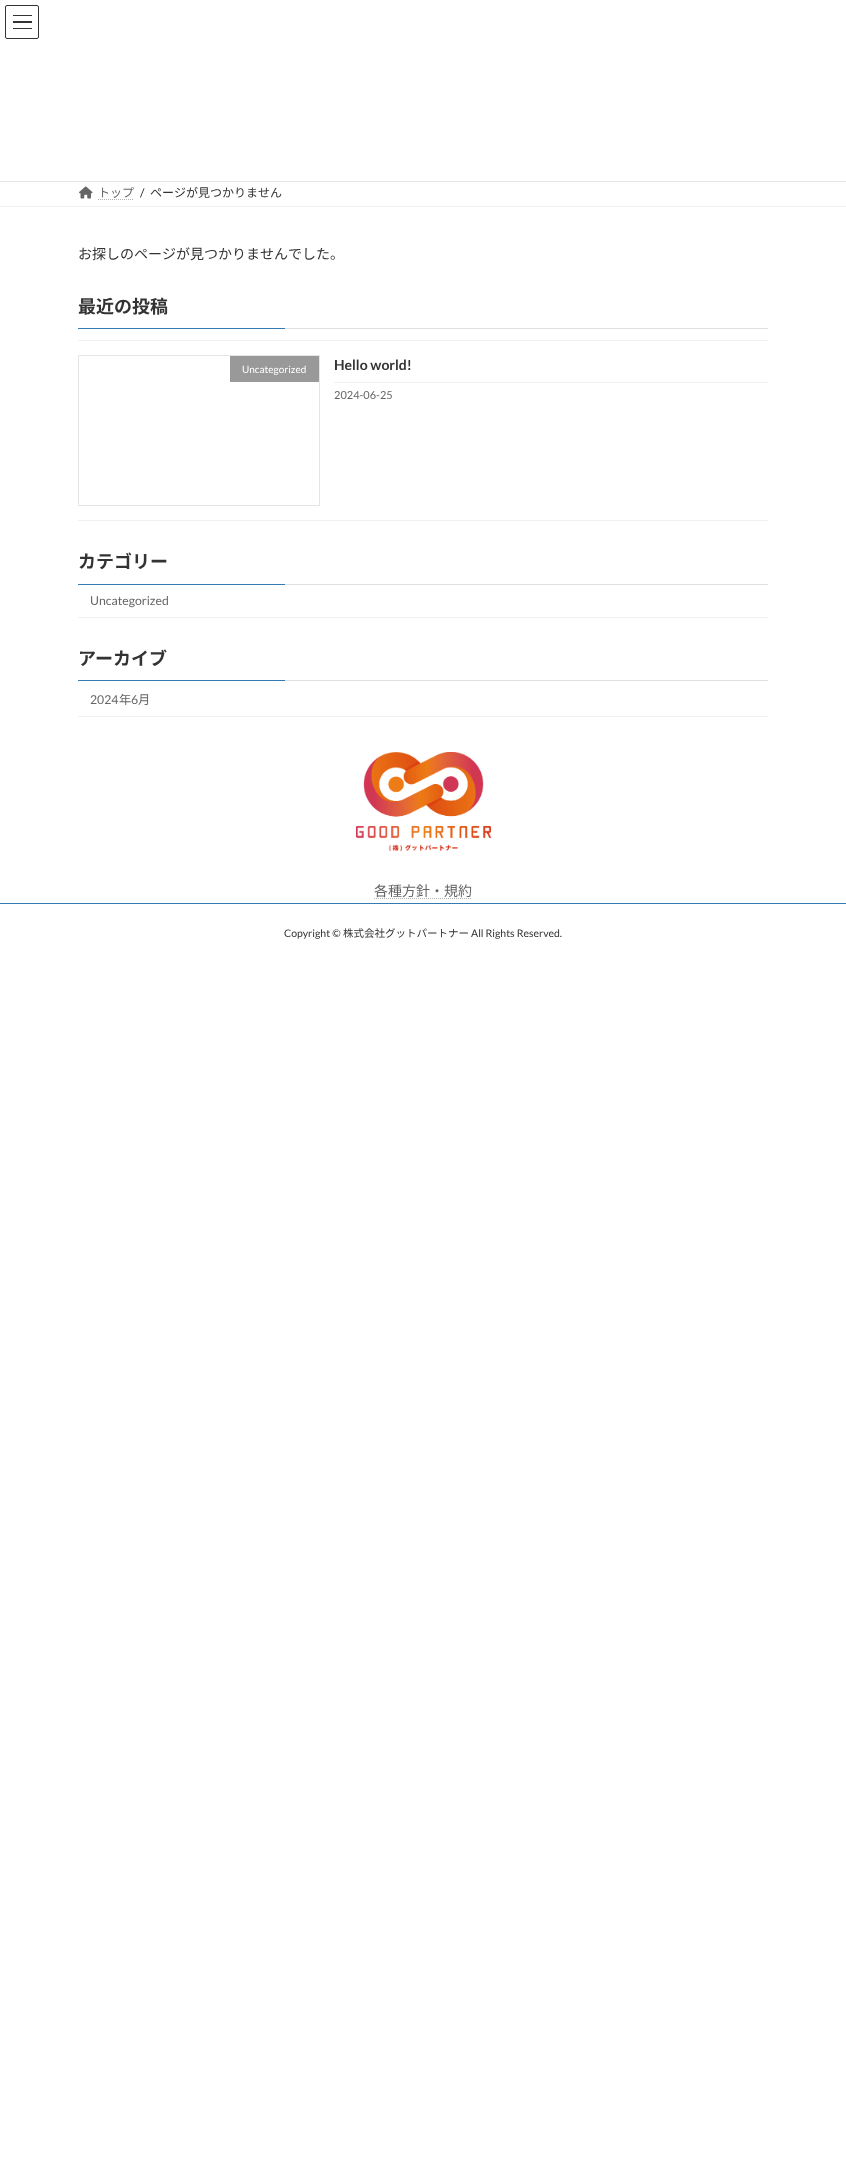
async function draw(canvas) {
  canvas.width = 846
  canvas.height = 2182
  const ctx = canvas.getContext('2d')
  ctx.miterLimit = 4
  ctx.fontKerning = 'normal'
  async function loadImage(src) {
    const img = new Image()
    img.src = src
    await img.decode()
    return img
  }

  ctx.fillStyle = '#fff'
  ctx.fillRect(0, 0, 846, 2182)
  ctx.fillStyle = '#333'
  ctx.fillRect(13, 15, 19, 1)
  ctx.fillRect(13, 21, 19, 2)
  ctx.fillRect(13, 28, 19, 1)
  ctx.beginPath()
  ctx.roundRect(5.5, 5.5, 33, 33, 1.5)
  ctx.strokeStyle = '#333'
  ctx.stroke()
  ctx.fillStyle = '#e5e5e5'
  ctx.fillRect(0, 181, 846, 1)
  ctx.fillStyle = '#f0f0f0'
  ctx.fillRect(0, 206, 846, 1)
  ctx.drawImage(await loadImage('image0.png'), 79, 186, 14, 13)
  ctx.font = '12px Noto Sans JP'
  ctx.fillStyle = '#666'
  ctx.fillText('トップ', 98, 197)
  ctx.beginPath()
  ctx.moveTo(98, 199.5)
  ctx.lineTo(134, 199.5)
  ctx.strokeStyle = '#b3b3b3'
  ctx.setLineDash([1, 1])
  ctx.stroke()
  ctx.font = '12px Lato'
  ctx.fillStyle = '#333'
  ctx.fillText('/', 140, 197)
  ctx.font = '12px Noto Sans JP'
  ctx.fillText('ページが見つかりません', 150, 197)
  ctx.font = '14px Noto Sans JP'
  ctx.fillText('お探しのページが見つかりませんでした。', 78, 259)
  ctx.fillStyle = '#e0e0e0'
  ctx.fillRect(285, 328, 483, 1)
  ctx.font = 'bold 18px Noto Sans JP'
  ctx.fillStyle = '#333'
  ctx.fillText('最近の投稿', 78, 313)
  ctx.fillStyle = '#337ab7'
  ctx.fillRect(78, 328, 207, 1)
  ctx.fillStyle = '#f0f0f0'
  ctx.fillRect(78, 340, 690, 1)
  ctx.fillRect(78, 520, 690, 1)
  ctx.strokeStyle = '#e5e5e5'
  ctx.setLineDash([])
  ctx.strokeRect(78.5, 355.5, 241, 150)
  ctx.fillStyle = '#999'
  ctx.fillRect(230, 356, 89, 26)
  ctx.font = '10px Lato'
  ctx.fillStyle = '#fff'
  ctx.fillText('Uncategorized', 242, 373)
  ctx.fillStyle = '#f0f0f0'
  ctx.fillRect(334, 382, 434, 1)
  ctx.font = 'bold 14px Lato'
  ctx.fillStyle = '#333'
  ctx.fillText('Hello world!', 334, 370)
  ctx.font = '11px Lato'
  ctx.fillStyle = '#666'
  ctx.fillText('2024-06-25', 334, 399)
  ctx.fillStyle = '#e0e0e0'
  ctx.fillRect(285, 584, 483, 1)
  ctx.font = 'bold 18px Noto Sans JP'
  ctx.fillStyle = '#333'
  ctx.fillText('カテゴリー', 78, 568)
  ctx.fillStyle = '#337ab7'
  ctx.fillRect(78, 584, 207, 1)
  ctx.fillStyle = '#f0f0f0'
  ctx.fillRect(78, 617, 690, 1)
  ctx.font = '12.25px Lato'
  ctx.fillStyle = '#666'
  ctx.fillText('Uncategorized', 90, 605)
  ctx.fillStyle = '#e0e0e0'
  ctx.fillRect(285, 680, 483, 1)
  ctx.font = 'bold 18px Noto Sans JP'
  ctx.fillStyle = '#333'
  ctx.fillText('アーカイブ', 78, 665)
  ctx.fillStyle = '#337ab7'
  ctx.fillRect(78, 680, 207, 1)
  ctx.fillStyle = '#f0f0f0'
  ctx.fillRect(78, 716, 690, 1)
  ctx.font = '12.25px Lato'
  ctx.fillStyle = '#666'
  ctx.fillText('2024', 90, 704)
  ctx.font = '12.25px Noto Sans JP'
  ctx.fillText('年', 119, 704)
  ctx.font = '12.25px Lato'
  ctx.fillText('6', 131, 704)
  ctx.font = '12.25px Noto Sans JP'
  ctx.fillText('月', 138, 704)
  ctx.drawImage(await loadImage('image1.png'), 356, 752, 135, 99)
  ctx.font = '14px Noto Sans JP'
  ctx.fillText('各種方針・規約', 374, 896)
  ctx.beginPath()
  ctx.moveTo(374, 898.5)
  ctx.lineTo(472, 898.5)
  ctx.strokeStyle = '#b3b3b3'
  ctx.setLineDash([1, 1])
  ctx.stroke()
  ctx.fillStyle = '#337ab7'
  ctx.fillRect(0, 903, 846, 1)
  ctx.font = '10.5px Lato'
  ctx.fillStyle = '#333'
  ctx.fillText('Copyright ©', 284, 937)
  ctx.font = '10.5px Noto Sans JP'
  ctx.fillText('株式会社グットパートナー', 343, 937)
  ctx.font = '10.5px Lato'
  ctx.fillText('All Rights Reserved.', 471, 937)
}

draw(document.querySelector('canvas'))
